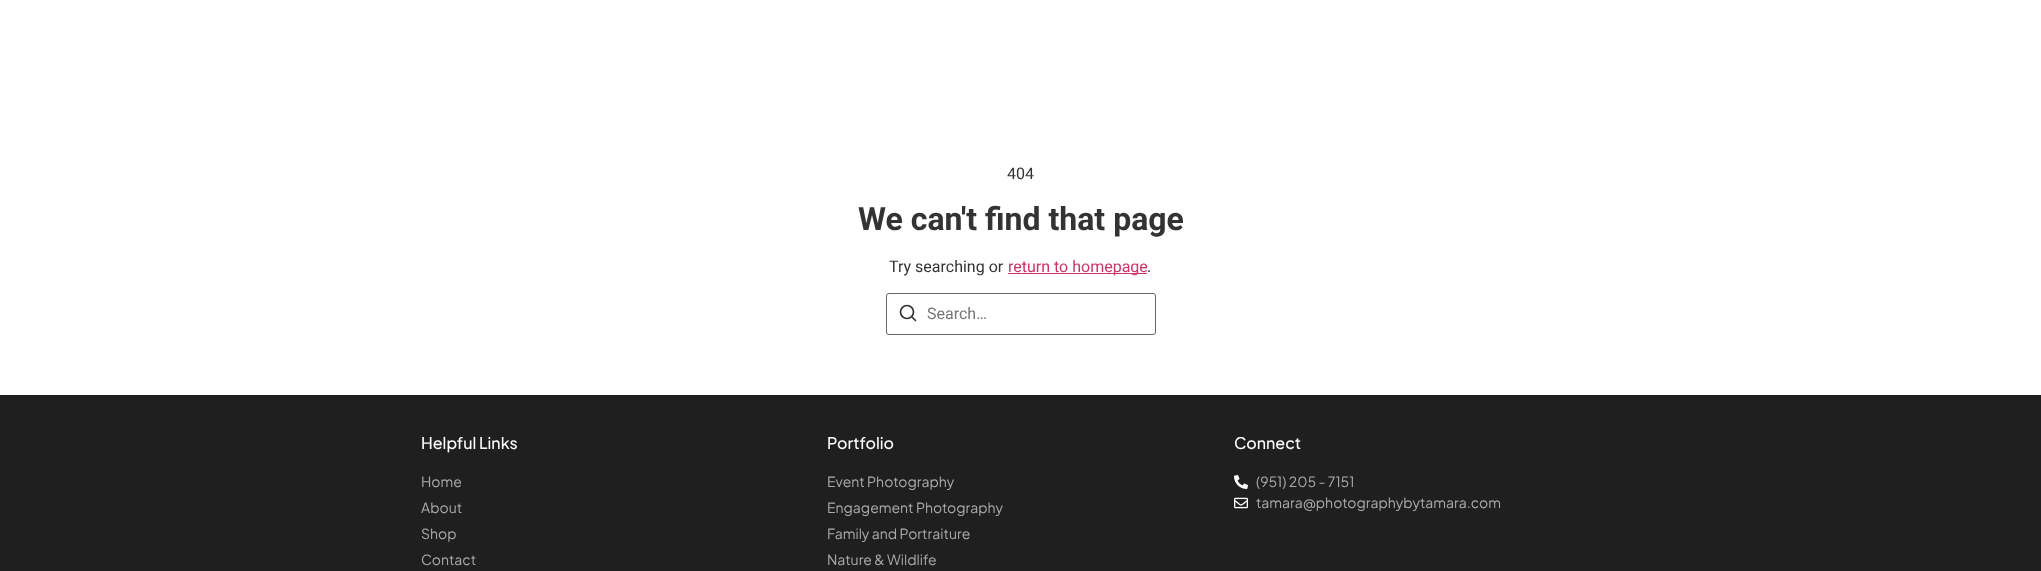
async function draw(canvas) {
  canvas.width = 2041
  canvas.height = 571
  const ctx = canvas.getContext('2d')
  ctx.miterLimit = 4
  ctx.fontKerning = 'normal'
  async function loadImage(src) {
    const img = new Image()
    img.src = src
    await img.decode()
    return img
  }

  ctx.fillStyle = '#fff'
  ctx.fillRect(0, 0, 2041, 571)
  ctx.font = '16px Roboto'
  ctx.fillStyle = '#333'
  ctx.fillText('404', 1007, 179)
  ctx.font = 'bold 32px Roboto'
  ctx.fillText('We can\'t find that page', 858, 230)
  ctx.font = '16px Roboto'
  ctx.fillText('Try searching or', 889, 272)
  ctx.fillStyle = '#c36'
  ctx.fillRect(1008, 273, 139, 1)
  ctx.fillText('return to homepage', 1008, 272)
  ctx.fillStyle = '#333'
  ctx.fillText('.', 1147, 272)
  ctx.beginPath()
  ctx.roundRect(886.5, 293.5, 269, 41, 2.5)
  ctx.strokeStyle = '#666'
  ctx.stroke()
  ctx.beginPath()
  ctx.arc(907, 312, 6.5, 0, 2 * Math.PI)
  ctx.strokeStyle = '#333'
  ctx.lineWidth = 1.7
  ctx.stroke()
  ctx.beginPath()
  ctx.moveTo(915.5, 320.5)
  ctx.lineTo(912, 317)
  ctx.lineCap = 'round'
  ctx.lineJoin = 'round'
  ctx.stroke()
  ctx.fillStyle = '#757575'
  ctx.fillText('Search…', 927, 319)
  ctx.fillStyle = '#1f1f1f'
  ctx.fillRect(0, 395, 2041, 176)
  ctx.font = '500 16px Plus Jakarta Sans'
  ctx.fillStyle = '#fff'
  ctx.fillText('Helpful Links', 421, 449)
  ctx.font = '14px Plus Jakarta Sans'
  ctx.fillStyle = '#acacac'
  ctx.fillText('Home', 421, 487)
  ctx.fillText('About', 421, 513)
  ctx.fillText('Shop', 421, 539)
  ctx.fillText('Contact', 421, 565)
  ctx.font = '500 16px Plus Jakarta Sans'
  ctx.fillStyle = '#fff'
  ctx.fillText('Portfolio', 827, 449)
  ctx.font = '14px Plus Jakarta Sans'
  ctx.fillStyle = '#acacac'
  ctx.fillText('Event Photography', 827, 487)
  ctx.fillText('Engagement Photography', 827, 513)
  ctx.fillText('Family and Portraiture', 827, 539)
  ctx.fillText('Nature & Wildlife', 827, 565)
  ctx.font = '500 16px Plus Jakarta Sans'
  ctx.fillStyle = '#fff'
  ctx.fillText('Connect', 1234, 449)
  ctx.drawImage(await loadImage('image0.png'), 1234, 475, 14, 14)
  ctx.font = '14px Plus Jakarta Sans'
  ctx.fillStyle = '#acacac'
  ctx.fillText('(951) 205 - 7151', 1256, 487)
  ctx.drawImage(await loadImage('image1.png'), 1234, 497, 14, 12)
  ctx.fillText('tamara@photographybytamara.com', 1256, 508)
}

draw(document.querySelector('canvas'))
